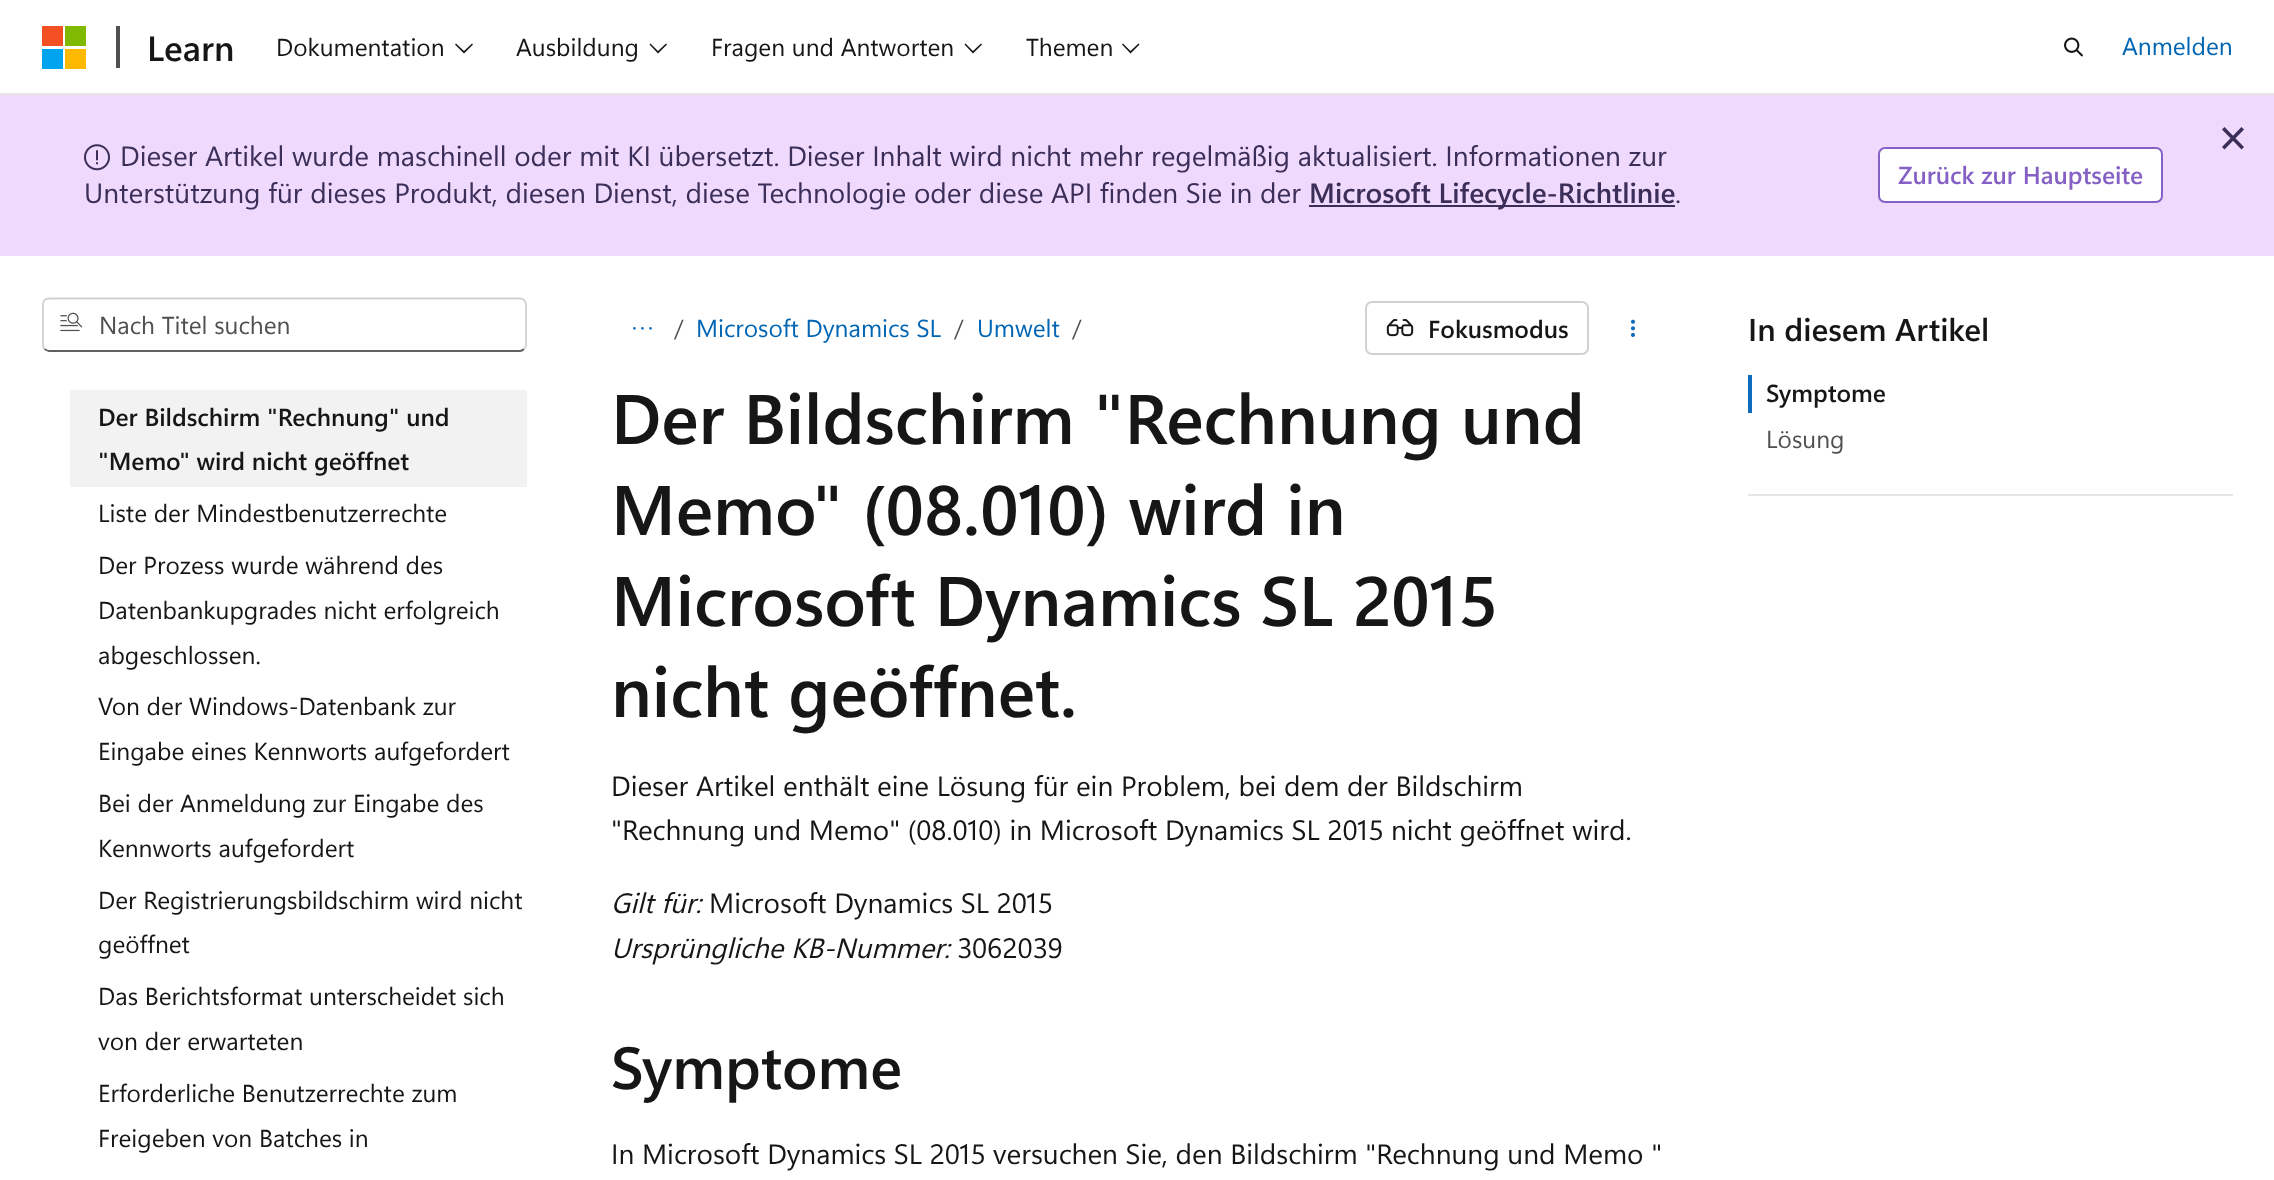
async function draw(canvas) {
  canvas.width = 2274
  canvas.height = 1180
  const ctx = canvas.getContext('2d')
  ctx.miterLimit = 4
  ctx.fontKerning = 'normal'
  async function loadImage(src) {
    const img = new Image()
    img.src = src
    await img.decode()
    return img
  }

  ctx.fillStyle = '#fff'
  ctx.fillRect(0, 0, 2274, 1180)
  ctx.fillStyle = '#e6e6e6'
  ctx.fillRect(0, 93, 2274, 2)
  ctx.fillStyle = '#f25022'
  ctx.fillRect(42, 26, 21, 20)
  ctx.fillStyle = '#7fba00'
  ctx.fillRect(65, 26, 21, 20)
  ctx.fillStyle = '#00a4ef'
  ctx.fillRect(42, 49, 21, 20)
  ctx.fillStyle = '#ffb900'
  ctx.fillRect(65, 49, 21, 20)
  ctx.fillStyle = '#505050'
  ctx.fillRect(116, 26, 4, 42)
  ctx.font = '600 35px Segoe UI'
  ctx.fillStyle = '#161616'
  ctx.fillText('Learn', 147, 61)
  ctx.font = '24.5px Segoe UI'
  ctx.fillText('Dokumentation', 276, 56)
  ctx.beginPath()
  ctx.moveTo(464, 53.5)
  ctx.lineTo(455, 44.5)
  ctx.lineTo(456, 43.5)
  ctx.lineTo(464, 51)
  ctx.lineTo(472, 43.5)
  ctx.lineTo(473, 44.5)
  ctx.closePath()
  ctx.fill()
  ctx.fillText('Ausbildung', 516, 56)
  ctx.beginPath()
  ctx.moveTo(658, 53.5)
  ctx.lineTo(649.5, 44.5)
  ctx.lineTo(650.5, 43.5)
  ctx.lineTo(658, 51)
  ctx.lineTo(666, 43.5)
  ctx.lineTo(667, 44.5)
  ctx.closePath()
  ctx.fill()
  ctx.fillText('Fragen und Antworten', 711, 56)
  ctx.beginPath()
  ctx.moveTo(973, 53.5)
  ctx.lineTo(964.5, 44.5)
  ctx.lineTo(965.5, 43.5)
  ctx.lineTo(973, 51)
  ctx.lineTo(981, 43.5)
  ctx.lineTo(982, 44.5)
  ctx.closePath()
  ctx.fill()
  ctx.fillText('Themen', 1026, 56)
  ctx.beginPath()
  ctx.moveTo(1130.5, 53.5)
  ctx.lineTo(1122, 44.5)
  ctx.lineTo(1123, 43.5)
  ctx.lineTo(1130.5, 51)
  ctx.lineTo(1138.5, 43.5)
  ctx.lineTo(1139.5, 44.5)
  ctx.closePath()
  ctx.fill()
  ctx.drawImage(await loadImage('image0.png'), 2064, 37, 19, 20)
  ctx.fillStyle = '#0065b3'
  ctx.fillText('Anmelden', 2122, 55)
  ctx.fillStyle = '#efd9fd'
  ctx.fillRect(0, 95, 2274, 161)
  ctx.fillStyle = '#3b2e58'
  ctx.beginPath()
  ctx.moveTo(2224.5, 127)
  ctx.lineTo(2244, 147)
  ctx.lineTo(2241.5, 149.5)
  ctx.lineTo(2222, 129.5)
  ctx.closePath()
  ctx.fill()
  ctx.beginPath()
  ctx.moveTo(2241.5, 127)
  ctx.lineTo(2244, 129.5)
  ctx.lineTo(2224.5, 149.5)
  ctx.lineTo(2222, 147)
  ctx.closePath()
  ctx.fill()
  ctx.drawImage(await loadImage('image1.png'), 84, 144, 26, 27)
  ctx.font = '28px Segoe UI'
  ctx.fillText('Dieser Artikel wurde maschinell oder mit KI übersetzt. Dieser Inhalt wird nicht mehr regelmäßig aktualisiert. Informationen zur', 120, 166)
  ctx.fillText('Unterstützung für dieses Produkt, diesen Dienst, diese Technologie oder diese API finden Sie in der', 84, 203)
  ctx.fillRect(1309, 205, 366, 2)
  ctx.font = '600 28px Segoe UI'
  ctx.fillText('Microsoft Lifecycle-Richtlinie', 1309, 203)
  ctx.font = '28px Segoe UI'
  ctx.fillText('.', 1675, 203)
  ctx.fillStyle = '#fff'
  ctx.beginPath()
  ctx.roundRect(1879, 148, 283, 54, 6)
  ctx.fill()
  ctx.strokeStyle = '#8661c5'
  ctx.lineWidth = 2
  ctx.stroke()
  ctx.font = '600 24.5px Segoe UI'
  ctx.fillStyle = '#8661c5'
  ctx.fillText('Zurück zur Hauptseite', 1898, 184)
  ctx.beginPath()
  ctx.moveTo(524, 349)
  ctx.bezierCurveTo(523, 350, 521.5, 351, 520, 351)
  ctx.lineTo(49, 351)
  ctx.bezierCurveTo(47.5, 351, 46, 350, 44.5, 349)
  ctx.strokeStyle = '#616161'
  ctx.lineWidth = 1.8
  ctx.stroke()
  ctx.beginPath()
  ctx.moveTo(44.5, 349)
  ctx.bezierCurveTo(43.5, 348, 43, 346.5, 43, 345)
  ctx.lineTo(43, 304.5)
  ctx.bezierCurveTo(43, 303, 43.5, 301.5, 44.5, 300)
  ctx.bezierCurveTo(46, 299, 47.5, 298.5, 49, 298.5)
  ctx.lineTo(520, 298.5)
  ctx.bezierCurveTo(521.5, 298.5, 523, 299, 524, 300)
  ctx.bezierCurveTo(525, 301.5, 526, 303, 526, 304.5)
  ctx.lineTo(526, 345)
  ctx.bezierCurveTo(526, 346.5, 525, 348, 524, 349)
  ctx.strokeStyle = '#d1d1d1'
  ctx.stroke()
  ctx.drawImage(await loadImage('image2.png'), 60, 312, 23, 20)
  ctx.font = '24.5px Segoe UI'
  ctx.fillStyle = '#505050'
  ctx.fillText('Nach Titel suchen', 99, 334)
  ctx.fillStyle = '#f2f2f2'
  ctx.fillRect(70, 390, 457, 97)
  ctx.font = '600 24.5px Segoe UI'
  ctx.fillStyle = '#161616'
  ctx.fillText('Der Bildschirm "Rechnung" und', 98, 426)
  ctx.fillText('"Memo" wird nicht geöffnet', 98, 470)
  ctx.font = '24.5px Segoe UI'
  ctx.fillText('Liste der Mindestbenutzerrechte', 98, 522)
  ctx.fillText('Der Prozess wurde während des', 98, 574)
  ctx.fillText('Datenbankupgrades nicht erfolgreich', 98, 619)
  ctx.fillText('abgeschlossen.', 98, 664)
  ctx.fillText('Von der Windows-Datenbank zur', 98, 715)
  ctx.fillText('Eingabe eines Kennworts aufgefordert', 98, 760)
  ctx.fillText('Bei der Anmeldung zur Eingabe des', 98, 812)
  ctx.fillText('Kennworts aufgefordert', 98, 857)
  ctx.fillText('Der Registrierungsbildschirm wird nicht', 98, 909)
  ctx.fillText('geöffnet', 98, 953)
  ctx.fillText('Das Berichtsformat unterscheidet sich', 98, 1005)
  ctx.fillText('von der erwarteten', 98, 1050)
  ctx.fillText('Erforderliche Benutzerrechte zum', 98, 1102)
  ctx.fillText('Freigeben von Batches in', 98, 1147)
  ctx.drawImage(await loadImage('image3.png'), 633, 327, 19, 3)
  ctx.fillStyle = '#505050'
  ctx.fillText('/', 674, 337)
  ctx.fillStyle = '#0065b3'
  ctx.fillText('Microsoft Dynamics SL', 696, 337)
  ctx.fillStyle = '#505050'
  ctx.fillText('/', 954, 337)
  ctx.fillStyle = '#0065b3'
  ctx.fillText('Umwelt', 977, 337)
  ctx.fillStyle = '#505050'
  ctx.fillText('/', 1072, 337)
  ctx.beginPath()
  ctx.roundRect(1366, 302, 222, 52, 6)
  ctx.lineWidth = 2
  ctx.stroke()
  ctx.drawImage(await loadImage('image4.png'), 1386, 319, 28, 18)
  ctx.font = '600 24.5px Segoe UI'
  ctx.fillStyle = '#161616'
  ctx.fillText('Fokusmodus', 1428, 338)
  ctx.drawImage(await loadImage('image5.png'), 1630, 319, 5, 18)
  ctx.font = '600 70px Segoe UI'
  ctx.fillText('Der Bildschirm "Rechnung und', 611, 444)
  ctx.fillText('Memo" (08.010) wird in', 611, 535)
  ctx.fillText('Microsoft Dynamics SL 2015', 611, 626)
  ctx.fillText('nicht geöffnet.', 611, 717)
  ctx.font = '28px Segoe UI'
  ctx.fillText('Dieser Artikel enthält eine Lösung für ein Problem, bei dem der Bildschirm', 611, 796)
  ctx.fillText('"Rechnung und Memo" (08.010) in Microsoft Dynamics SL 2015 nicht geöffnet wird.', 611, 840)
  ctx.font = 'italic 28px Segoe UI'
  ctx.fillText('Gilt für:', 611, 913)
  ctx.font = '28px Segoe UI'
  ctx.fillText('Microsoft Dynamics SL 2015', 709, 913)
  ctx.font = 'italic 28px Segoe UI'
  ctx.fillText('Ursprüngliche KB-Nummer:', 611, 958)
  ctx.font = '28px Segoe UI'
  ctx.fillText('3062039', 957, 958)
  ctx.font = '600 59.5px Segoe UI'
  ctx.fillText('Symptome', 611, 1089)
  ctx.font = '28px Segoe UI'
  ctx.fillText('In Microsoft Dynamics SL 2015 versuchen Sie, den Bildschirm "Rechnung und Memo "', 611, 1164)
  ctx.fillStyle = '#e6e6e6'
  ctx.fillRect(1748, 494, 485, 2)
  ctx.font = '600 31.5px Segoe UI'
  ctx.fillStyle = '#161616'
  ctx.fillText('In diesem Artikel', 1748, 341)
  ctx.fillStyle = '#0f6cbd'
  ctx.fillRect(1748, 375, 4, 38)
  ctx.font = '600 24.5px Segoe UI'
  ctx.fillStyle = '#161616'
  ctx.fillText('Symptome', 1766, 402)
  ctx.font = '24.5px Segoe UI'
  ctx.fillStyle = '#505050'
  ctx.fillText('Lösung', 1766, 448)
}

draw(document.querySelector('canvas'))
